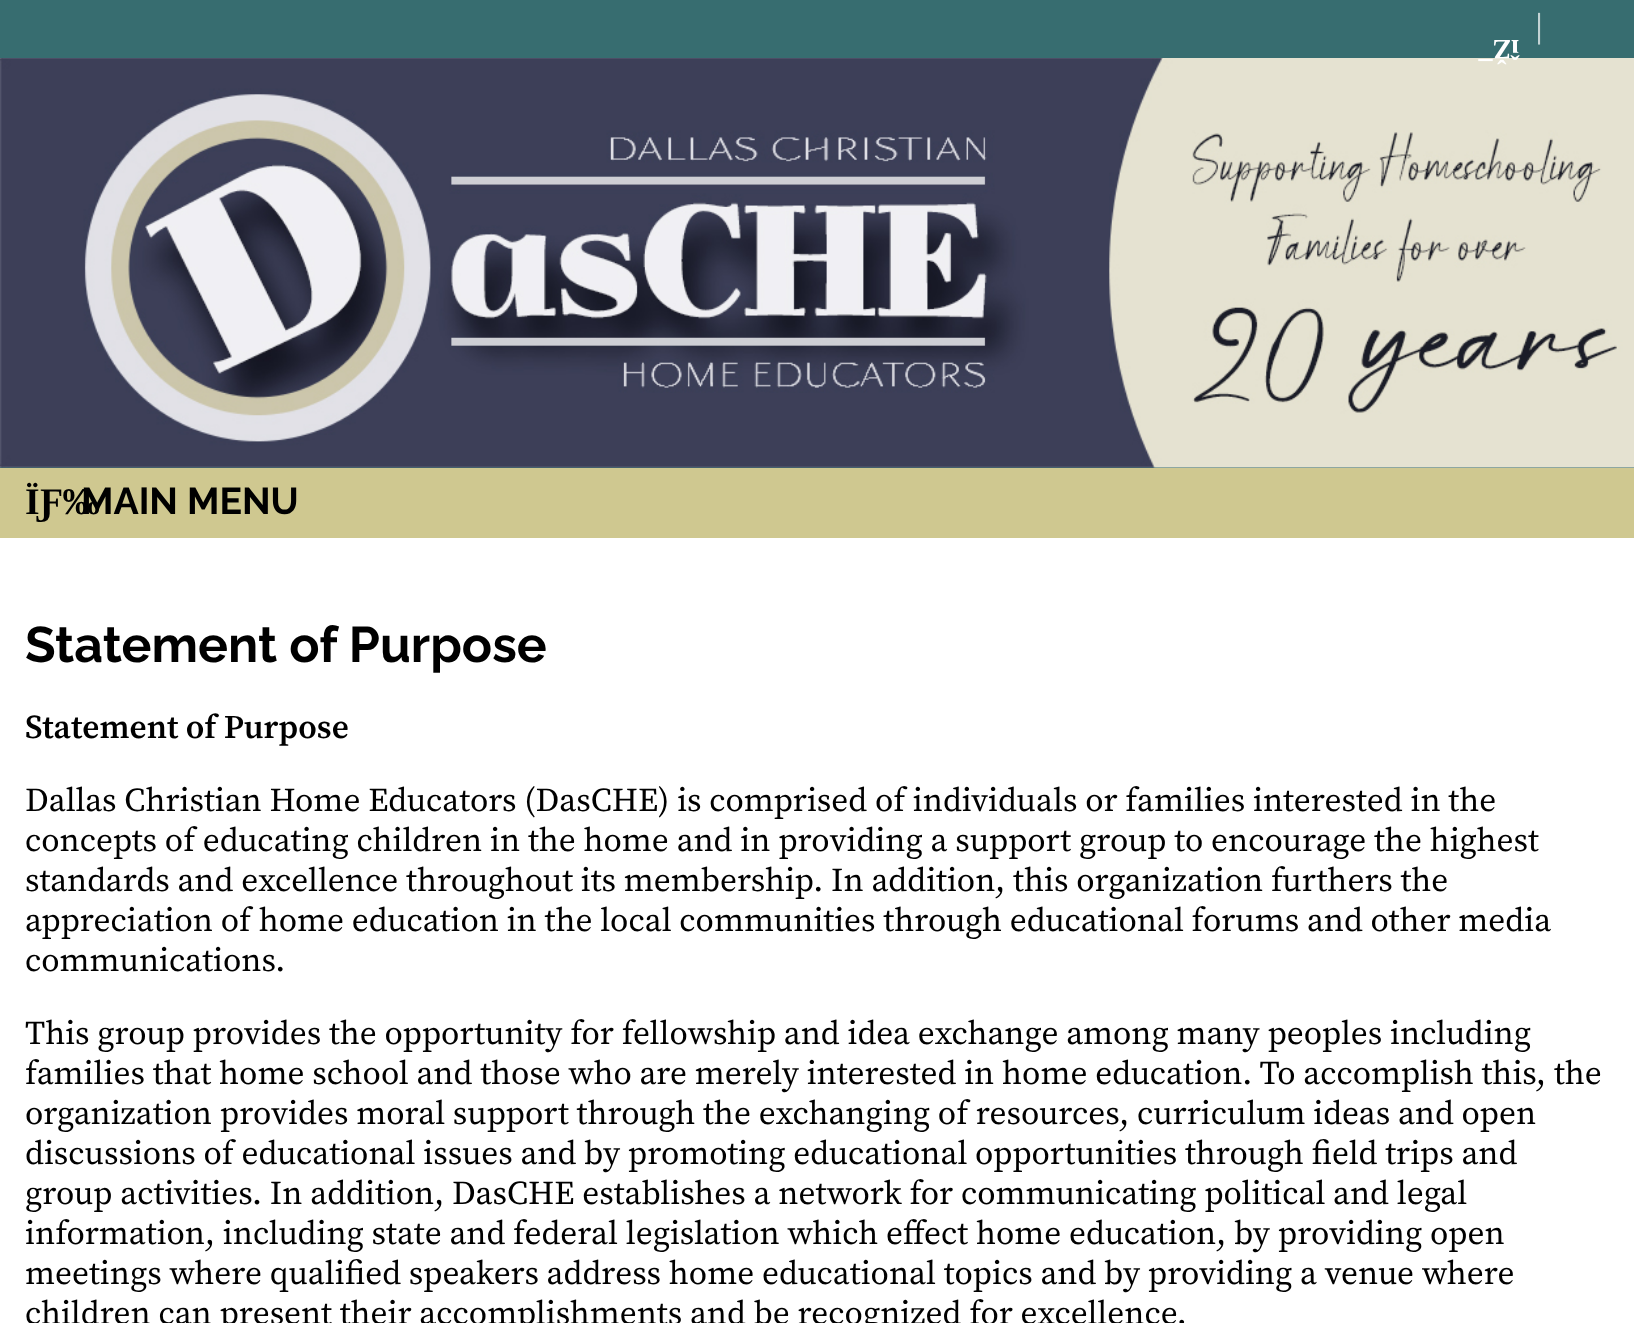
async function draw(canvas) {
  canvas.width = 1634
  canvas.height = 1323
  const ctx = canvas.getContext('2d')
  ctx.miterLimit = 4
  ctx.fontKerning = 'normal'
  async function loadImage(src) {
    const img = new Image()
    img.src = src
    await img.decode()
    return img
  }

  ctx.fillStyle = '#376d70'
  ctx.fillRect(0, 0, 1634, 1323)
  ctx.font = '35px Raleway'
  ctx.fillStyle = '#c3d3d4'
  ctx.fillText('|', 1535, 40)
  ctx.drawImage(await loadImage('image0.png'), 0, 58, 1634, 410)
  ctx.font = 'bold 28px Liberation Serif'
  ctx.fillStyle = '#fff'
  ctx.save()
  ctx.translate(1519, 40)
  ctx.rotate(180 * Math.PI / 180)
  ctx.fillText('îŽ¯', 0, 0)
  ctx.restore()
  ctx.fillStyle = '#cfc890'
  ctx.fillRect(0, 468, 1634, 70)
  ctx.font = 'bold 37.5px Liberation Serif'
  ctx.fillStyle = '#000'
  ctx.fillText('ÏƑ‰', 25, 514)
  ctx.font = 'bold 37.5px Raleway'
  ctx.fillText('MAIN MENU', 81, 514)
  ctx.fillStyle = '#fff'
  ctx.fillRect(0, 538, 1634, 785)
  ctx.font = 'bold 50px Raleway'
  ctx.fillStyle = '#000'
  ctx.fillText('Statement of Purpose', 25, 662)
  ctx.font = '600 33.35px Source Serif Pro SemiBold'
  ctx.fillText('Statement of Purpose', 25, 738)
  ctx.font = '33.35px Source Serif Pro'
  ctx.fillText('Dallas Christian Home Educators (DasCHE) is comprised of individuals or families interested in the', 25, 811)
  ctx.fillText('concepts of educating children in the home and in providing a support group to encourage the highest', 25, 851)
  ctx.fillText('standards and excellence throughout its membership. In addition, this organization furthers the', 25, 891)
  ctx.fillText('appreciation of home education in the local communities through educational forums and other media', 25, 931)
  ctx.fillText('communications.', 25, 971)
  ctx.fillText('This group provides the opportunity for fellowship and idea exchange among many peoples including', 25, 1044)
  ctx.fillText('families that home school and those who are merely interested in home education. To accomplish this, the', 25, 1084)
  ctx.fillText('organization provides moral support through the exchanging of resources, curriculum ideas and open', 25, 1124)
  ctx.fillText('discussions of educational issues and by promoting educational opportunities through field trips and', 25, 1164)
  ctx.fillText('group activities. In addition, DasCHE establishes a network for communicating political and legal', 25, 1204)
  ctx.fillText('information, including state and federal legislation which effect home education, by providing open', 25, 1244)
  ctx.fillText('meetings where qualified speakers address home educational topics and by providing a venue where', 25, 1284)
  ctx.fillText('children can present their accomplishments and be recognized for excellence.', 25, 1324)
}

draw(document.querySelector('canvas'))
